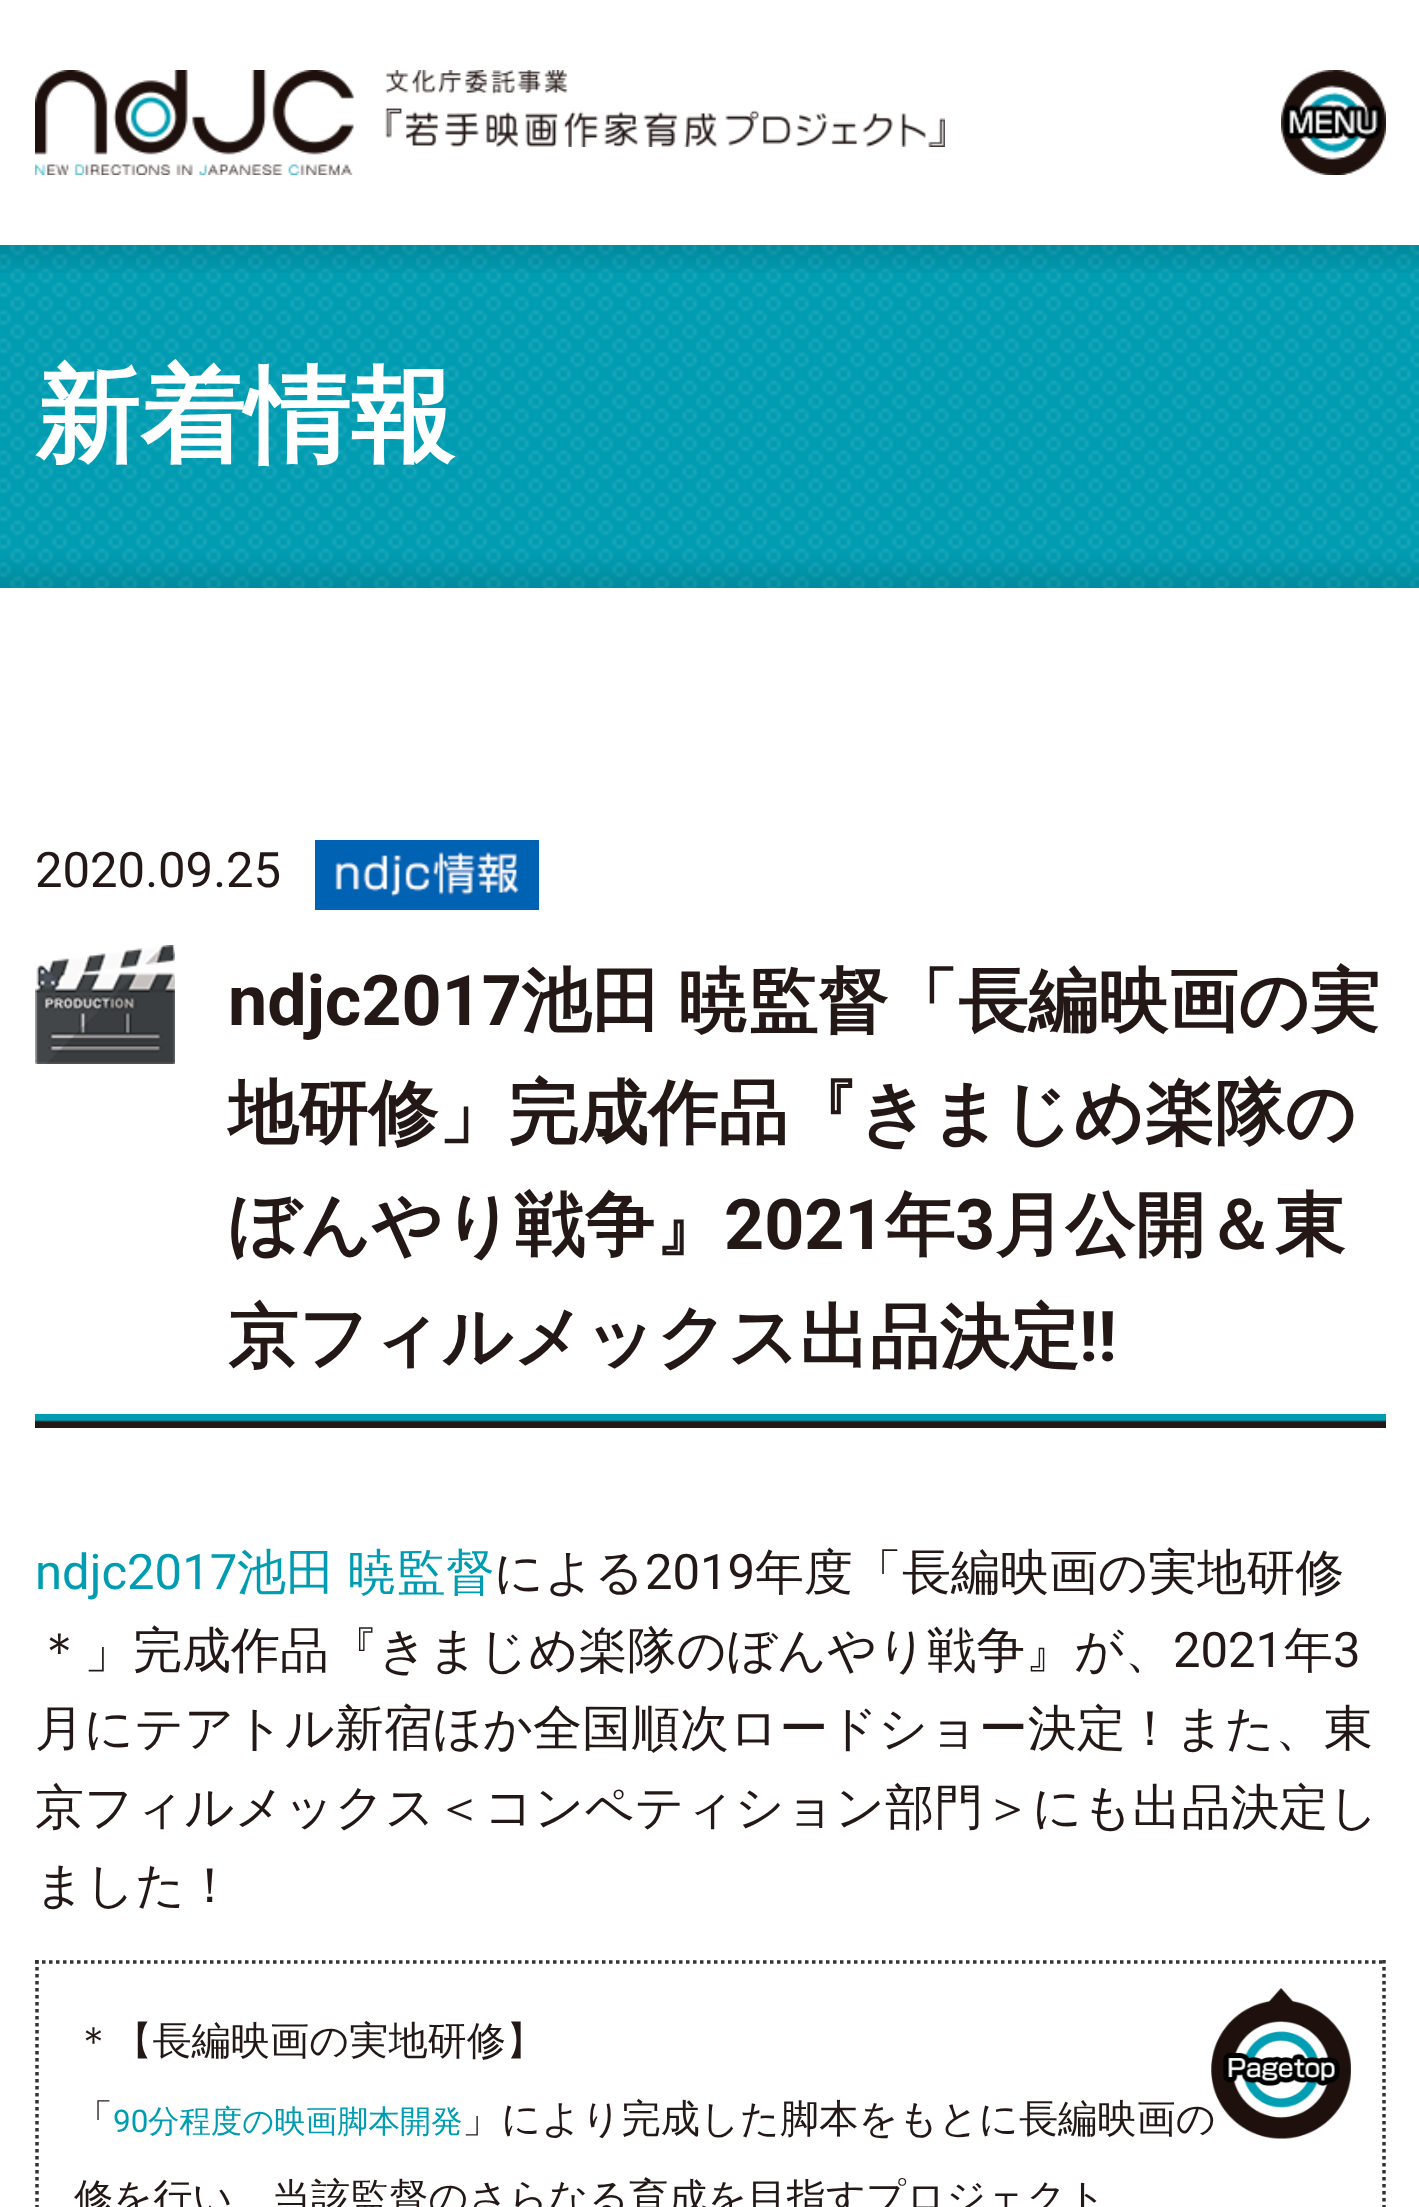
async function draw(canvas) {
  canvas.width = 1419
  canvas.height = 2207
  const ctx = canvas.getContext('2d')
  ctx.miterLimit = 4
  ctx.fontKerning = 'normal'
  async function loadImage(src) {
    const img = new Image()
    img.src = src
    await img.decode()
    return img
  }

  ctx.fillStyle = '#fff'
  ctx.fillRect(0, 0, 1419, 2207)
  ctx.drawImage(await loadImage('image4.png'), 0, 245, 1419, 343)
  ctx.drawImage(await loadImage('image0.png'), 0, 245, 1419, 28)
  ctx.drawImage(await loadImage('image1.png'), 35, 70, 319, 105)
  ctx.drawImage(await loadImage('image2.png'), 385, 70, 560, 77)
  ctx.drawImage(await loadImage('image3.png'), 1281, 70, 105, 105)
  ctx.font = 'bold 105px WenQuanYi Zen Hei'
  ctx.fillText('新着情報', 35, 452)
  ctx.font = '49px Roboto'
  ctx.fillStyle = '#231815'
  ctx.fillText('2020.09.25', 35, 887)
  ctx.drawImage(await loadImage('image5.png'), 315, 840, 224, 70)
  ctx.drawImage(await loadImage('image6.png'), 35, 945, 1351, 483)
  ctx.font = 'bold 70px Roboto'
  ctx.fillText('ndjc2017', 228, 1025)
  ctx.wordSpacing = '-4px'
  ctx.font = 'bold 70px WenQuanYi Zen Hei'
  ctx.fillText('池田 暁監督「長編映画の実', 521, 1025)
  ctx.wordSpacing = '0px'
  ctx.fillText('地研修」完成作品『きまじめ楽隊の', 228, 1137)
  ctx.fillText('ぼんやり戦争』', 228, 1249)
  ctx.font = 'bold 70px Roboto'
  ctx.fillText('2021', 724, 1249)
  ctx.font = 'bold 70px WenQuanYi Zen Hei'
  ctx.fillText('年', 885, 1249)
  ctx.font = 'bold 70px Roboto'
  ctx.fillText('3', 955, 1249)
  ctx.font = 'bold 70px WenQuanYi Zen Hei'
  ctx.fillText('月公開＆東', 995, 1249)
  ctx.fillText('京フィルメックス出品決定', 228, 1361)
  ctx.font = 'bold 70px Roboto'
  ctx.fillText('‼︎', 1079, 1361)
  ctx.font = '49px Roboto'
  ctx.fillStyle = '#009cb2'
  ctx.fillText('ndjc2017', 35, 1589)
  ctx.wordSpacing = '-2px'
  ctx.font = '500 49px WenQuanYi Zen Hei'
  ctx.fillText('池田 暁監督', 237, 1589)
  ctx.wordSpacing = '0px'
  ctx.fillStyle = '#231815'
  ctx.fillText('による', 494, 1589)
  ctx.font = '49px Roboto'
  ctx.fillText('2019', 645, 1589)
  ctx.font = '500 49px WenQuanYi Zen Hei'
  ctx.fillText('年度「長編映画の実地研修', 755, 1589)
  ctx.fillText('＊」完成作品『きまじめ楽隊のぼんやり戦争』が、', 35, 1667)
  ctx.font = '49px Roboto'
  ctx.fillText('2021', 1173, 1667)
  ctx.font = '500 49px WenQuanYi Zen Hei'
  ctx.fillText('年', 1284, 1667)
  ctx.font = '49px Roboto'
  ctx.fillText('3', 1333, 1667)
  ctx.font = '500 49px WenQuanYi Zen Hei'
  ctx.fillText('月にテアトル新宿ほか全国順次ロードショー決定！また、東', 35, 1745)
  ctx.fillText('京フィルメックス＜コンペティション部門＞にも出品決定し', 35, 1824)
  ctx.fillText('ました！', 35, 1902)
  ctx.beginPath()
  ctx.moveTo(35, 1962)
  ctx.lineTo(1386, 1962)
  ctx.strokeStyle = '#333'
  ctx.lineWidth = 3.5
  ctx.setLineDash([3.5, 3.5])
  ctx.stroke()
  ctx.beginPath()
  ctx.moveTo(1384, 1960)
  ctx.lineTo(1384, 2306.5)
  ctx.stroke()
  ctx.beginPath()
  ctx.moveTo(37, 1960)
  ctx.lineTo(37, 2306.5)
  ctx.stroke()
  ctx.font = '500 39.2px WenQuanYi Zen Hei'
  ctx.fillText('＊【長編映画の実地研修】', 74, 2054)
  ctx.fillText('「', 74, 2132)
  ctx.font = '31.4px Roboto'
  ctx.fillStyle = '#009cb2'
  ctx.fillText('90', 113, 2132)
  ctx.font = '500 31.4px WenQuanYi Zen Hei'
  ctx.fillText('分程度の映画脚本開発', 148, 2132)
  ctx.font = '500 39.2px WenQuanYi Zen Hei'
  ctx.fillStyle = '#231815'
  ctx.fillText('」により完成した脚本をもとに長編映画の', 462, 2132)
  ctx.fillText('修を行い、当該監督のさらなる育成を目指すプロジェクト', 74, 2211)
  ctx.drawImage(await loadImage('image7.png'), 1211, 1988, 140, 151)
}

draw(document.querySelector('canvas'))
